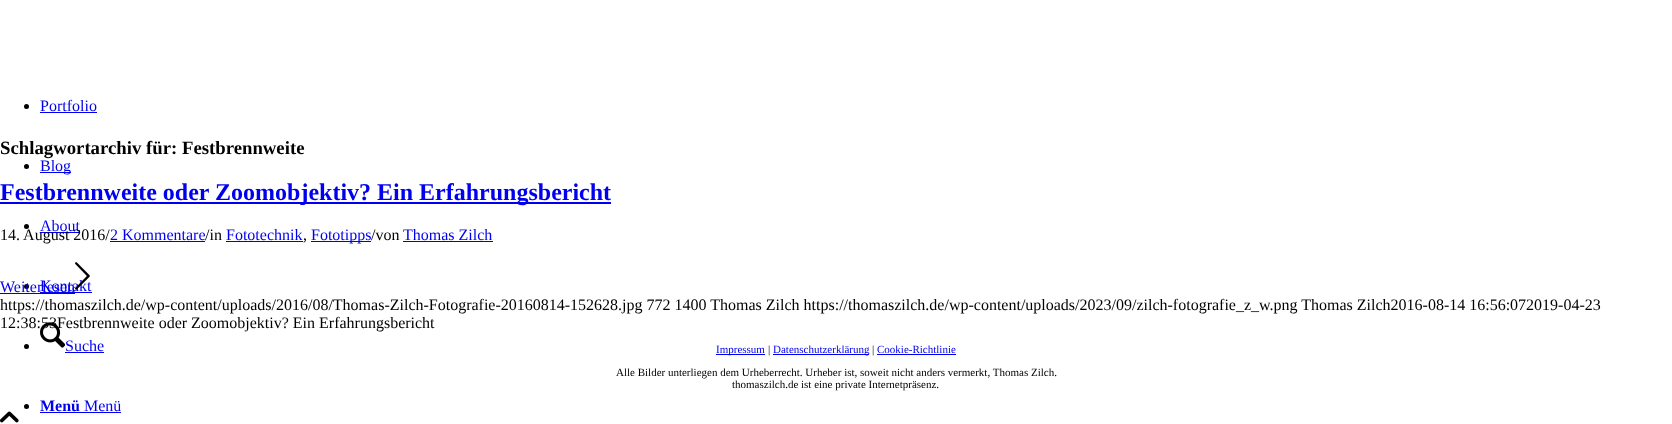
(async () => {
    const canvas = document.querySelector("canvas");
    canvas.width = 1672;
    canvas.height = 424;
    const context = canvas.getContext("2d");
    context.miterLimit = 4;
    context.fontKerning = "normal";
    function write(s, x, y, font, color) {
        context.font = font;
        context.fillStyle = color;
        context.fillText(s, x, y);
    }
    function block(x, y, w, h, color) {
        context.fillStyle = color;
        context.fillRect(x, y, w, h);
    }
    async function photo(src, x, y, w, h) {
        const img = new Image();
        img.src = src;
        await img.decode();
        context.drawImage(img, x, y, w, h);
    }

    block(0, 0, 1672, 424, "rgb(255, 255, 255)");
    context.fillStyle = "rgb(0, 0, 0)";
    context.beginPath();
    context.arc(26.5, 106.5, 2.5, 0, Math.PI * 2);
    context.fill();
    write("Portfolio", 40, 111, "16px Liberation Serif", "rgb(0, 0, 238)");
    block(40, 112, 57, 1, "rgb(0, 0, 238)");
    context.fillStyle = "rgb(0, 0, 0)";
    context.beginPath();
    context.arc(26.5, 166.5, 2.5, 0, Math.PI * 2);
    context.fill();
    block(40, 172, 31, 1, "rgb(0, 0, 238)");
    write("Blog", 40, 171, "16px Liberation Serif", "rgb(0, 0, 238)");
    context.fillStyle = "rgb(0, 0, 0)";
    context.beginPath();
    context.arc(26.5, 226.5, 2.5, 0, Math.PI * 2);
    context.fill();
    write("About", 40, 231, "16px Liberation Serif", "rgb(0, 0, 238)");
    block(40, 232, 40, 1, "rgb(0, 0, 238)");
    context.fillStyle = "rgb(0, 0, 0)";
    context.beginPath();
    context.arc(26.5, 286.5, 2.5, 0, Math.PI * 2);
    context.fill();
    write("Kontakt", 40, 291, "16px Liberation Serif", "rgb(0, 0, 238)");
    block(40, 292, 52, 1, "rgb(0, 0, 238)");
    context.fillStyle = "rgb(0, 0, 0)";
    context.beginPath();
    context.arc(26.5, 346.5, 2.5, 0, Math.PI * 2);
    context.fill();
    write("12:38:53Festbrennweite oder Zoomobjektiv? Ein Erfahrungsbericht", 0, 328, "16px Liberation Serif", "rgb(0, 0, 0)");
    await photo("media/1.png", 40, 322, 25, 26);
    write("Suche", 65, 351, "16px Liberation Serif", "rgb(0, 0, 238)");
    block(65, 352, 39, 1, "rgb(0, 0, 238)");
    context.fillStyle = "rgb(0, 0, 0)";
    context.beginPath();
    context.arc(26.5, 406.5, 2.5, 0, Math.PI * 2);
    context.fill();
    write("Menü", 40, 411, "bold 16px Liberation Serif", "rgb(0, 0, 238)");
    block(40, 412, 81, 1, "rgb(0, 0, 238)");
    write("Menü", 84, 411, "16px Liberation Serif", "rgb(0, 0, 238)");
    write("Schlagwortarchiv für: Festbrennweite", 0, 154, "bold 18.75px Liberation Serif", "rgb(0, 0, 0)");
    block(0, 202, 611, 2, "rgb(0, 0, 238)");
    write("Festbrennweite oder Zoomobjektiv? Ein Erfahrungsbericht", 0, 200, "bold 24px Liberation Serif", "rgb(0, 0, 238)");
    write("14. August 2016/", 0, 240, "16px Liberation Serif", "rgb(0, 0, 0)");
    block(110, 241, 95, 1, "rgb(0, 0, 238)");
    write("2 Kommentare", 110, 240, "16px Liberation Serif", "rgb(0, 0, 238)");
    write("/in", 205, 240, "16px Liberation Serif", "rgb(0, 0, 0)");
    write("Fototechnik", 226, 240, "16px Liberation Serif", "rgb(0, 0, 238)");
    write(",", 303, 240, "16px Liberation Serif", "rgb(0, 0, 0)");
    block(226, 241, 77, 1, "rgb(0, 0, 238)");
    block(311, 241, 60, 1, "rgb(0, 0, 238)");
    write("Fototipps", 311, 240, "16px Liberation Serif", "rgb(0, 0, 238)");
    write("/von", 371, 240, "16px Liberation Serif", "rgb(0, 0, 0)");
    write("Thomas Zilch", 403, 240, "16px Liberation Serif", "rgb(0, 0, 238)");
    block(403, 241, 90, 1, "rgb(0, 0, 238)");
    write("Weiterlesen", 0, 292, "16px Liberation Serif", "rgb(0, 0, 238)");
    block(0, 293, 75, 1, "rgb(0, 0, 238)");
    await photo("media/2.png", 75, 262, 15, 28);
    write("https://thomaszilch.de/wp-content/uploads/2016/08/Thomas-Zilch-Fotografie-20160814-152628.jpg 772 1400 Thomas Zilch https://thomaszilch.de/wp-content/uploads/2023/09/zilch-fotografie_z_w.png Thomas Zilch2016-08-14 16:56:072019-04-23", 0, 310, "16px Liberation Serif", "rgb(0, 0, 0)");
    block(716, 354, 49, 1, "rgb(0, 0, 238)");
    write("Impressum", 716, 353, "11px Liberation Serif", "rgb(0, 0, 238)");
    write("|", 768, 353, "11px Liberation Serif", "rgb(0, 0, 0)");
    block(773, 354, 96, 1, "rgb(0, 0, 238)");
    write("Datenschutzerklärung", 773, 353, "11px Liberation Serif", "rgb(0, 0, 238)");
    write("|", 872, 353, "11px Liberation Serif", "rgb(0, 0, 0)");
    write("Cookie-Richtlinie", 877, 353, "11px Liberation Serif", "rgb(0, 0, 238)");
    block(877, 354, 79, 1, "rgb(0, 0, 238)");
    write("Alle Bilder unterliegen dem Urheberrecht. Urheber ist, soweit nicht anders vermerkt, Thomas Zilch.", 616, 376, "11px Liberation Serif", "rgb(0, 0, 0)");
    write("thomaszilch.de ist eine private Internetpräsenz.", 732, 388, "11px Liberation Serif", "rgb(0, 0, 0)");
    await photo("media/3.png", 0, 411, 19, 12);
})();
